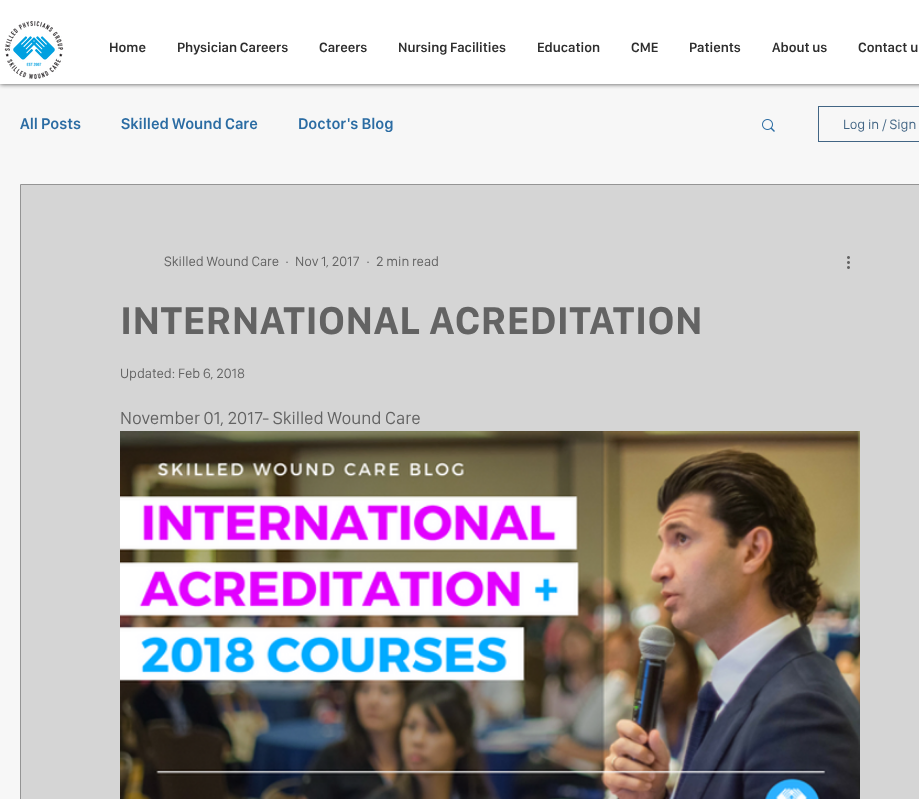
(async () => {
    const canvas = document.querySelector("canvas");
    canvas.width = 919;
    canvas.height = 799;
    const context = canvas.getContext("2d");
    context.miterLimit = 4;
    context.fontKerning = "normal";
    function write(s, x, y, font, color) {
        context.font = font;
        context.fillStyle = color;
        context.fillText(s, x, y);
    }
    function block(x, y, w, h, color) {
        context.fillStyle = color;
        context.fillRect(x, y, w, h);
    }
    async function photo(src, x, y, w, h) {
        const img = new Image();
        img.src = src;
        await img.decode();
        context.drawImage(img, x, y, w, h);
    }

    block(0, 0, 919, 799, "rgb(247, 247, 247)");
    context.fillStyle = "rgba(0, 0, 0, 0.7)";
    context.filter = "blur(2.5px)";
    context.beginPath();
    context.rect(0, 0, 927, 84);
    context.fill();
    context.filter = "none";
    block(0, 0, 919, 84, "rgb(255, 255, 255)");
    await photo("media/1.png", 4, 21, 60, 58);
    write("Home", 109, 52, "600 14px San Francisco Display", "rgb(46, 46, 46)");
    write("Physician Careers", 177, 52, "600 14px San Francisco Display", "rgb(46, 46, 46)");
    write("Careers", 319, 52, "600 14px San Francisco Display", "rgb(46, 46, 46)");
    write("Nursing Facilities", 398, 52, "600 14px San Francisco Display", "rgb(46, 46, 46)");
    write("Education", 537, 52, "600 14px San Francisco Display", "rgb(46, 46, 46)");
    write("CME", 631, 52, "600 14px San Francisco Display", "rgb(46, 46, 46)");
    write("Patients", 689, 52, "600 14px San Francisco Display", "rgb(46, 46, 46)");
    write("About us", 772, 52, "600 14px San Francisco Display", "rgb(46, 46, 46)");
    write("Contact u", 858, 52, "600 14px San Francisco Display", "rgb(46, 46, 46)");
    write("All Posts", 20, 129, "600 16px San Francisco Display", "rgb(43, 108, 163)");
    write("Skilled Wound Care", 121, 129, "600 16px San Francisco Display", "rgb(43, 108, 163)");
    write("Doctor's Blog", 298, 129, "600 16px San Francisco Display", "rgb(43, 108, 163)");
    await photo("media/2.png", 762, 119, 13, 13);
    context.strokeStyle = "rgb(66, 101, 132)";
    context.strokeRect(818.5, 106.5, 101, 35);
    write("Log in / Sign", 843, 129, "14px San Francisco Display", "rgb(66, 101, 132)");
    context.fillStyle = "rgb(213, 213, 213)";
    context.beginPath();
    context.rect(20.5, 184.5, 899, 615);
    context.fill();
    context.strokeStyle = "rgb(148, 148, 148)";
    context.stroke();
    write("Skilled Wound Care", 164, 266, "14px San Francisco Display", "rgb(99, 99, 99)");
    write("·", 285, 266, "14px San Francisco Display", "rgb(99, 99, 99)");
    write("Nov 1, 2017", 295, 266, "14px San Francisco Display", "rgb(99, 99, 99)");
    write("·", 366, 266, "14px San Francisco Display", "rgb(99, 99, 99)");
    write("2 min read", 376, 266, "14px San Francisco Display", "rgb(99, 99, 99)");
    await photo("media/3.png", 847, 256, 3, 13);
    write("INTERNATIONAL ACREDITATION", 120, 334, "bold 40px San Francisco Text", "rgb(99, 99, 99)");
    write("Updated: Feb 6, 2018", 120, 378, "14px San Francisco Display", "rgb(99, 99, 99)");
    write("November 01, 2017- Skilled Wound Care", 120, 424, "18px San Francisco Display", "rgb(99, 99, 99)");
    await photo("media/4.png", 120, 431, 740, 368);
})();
